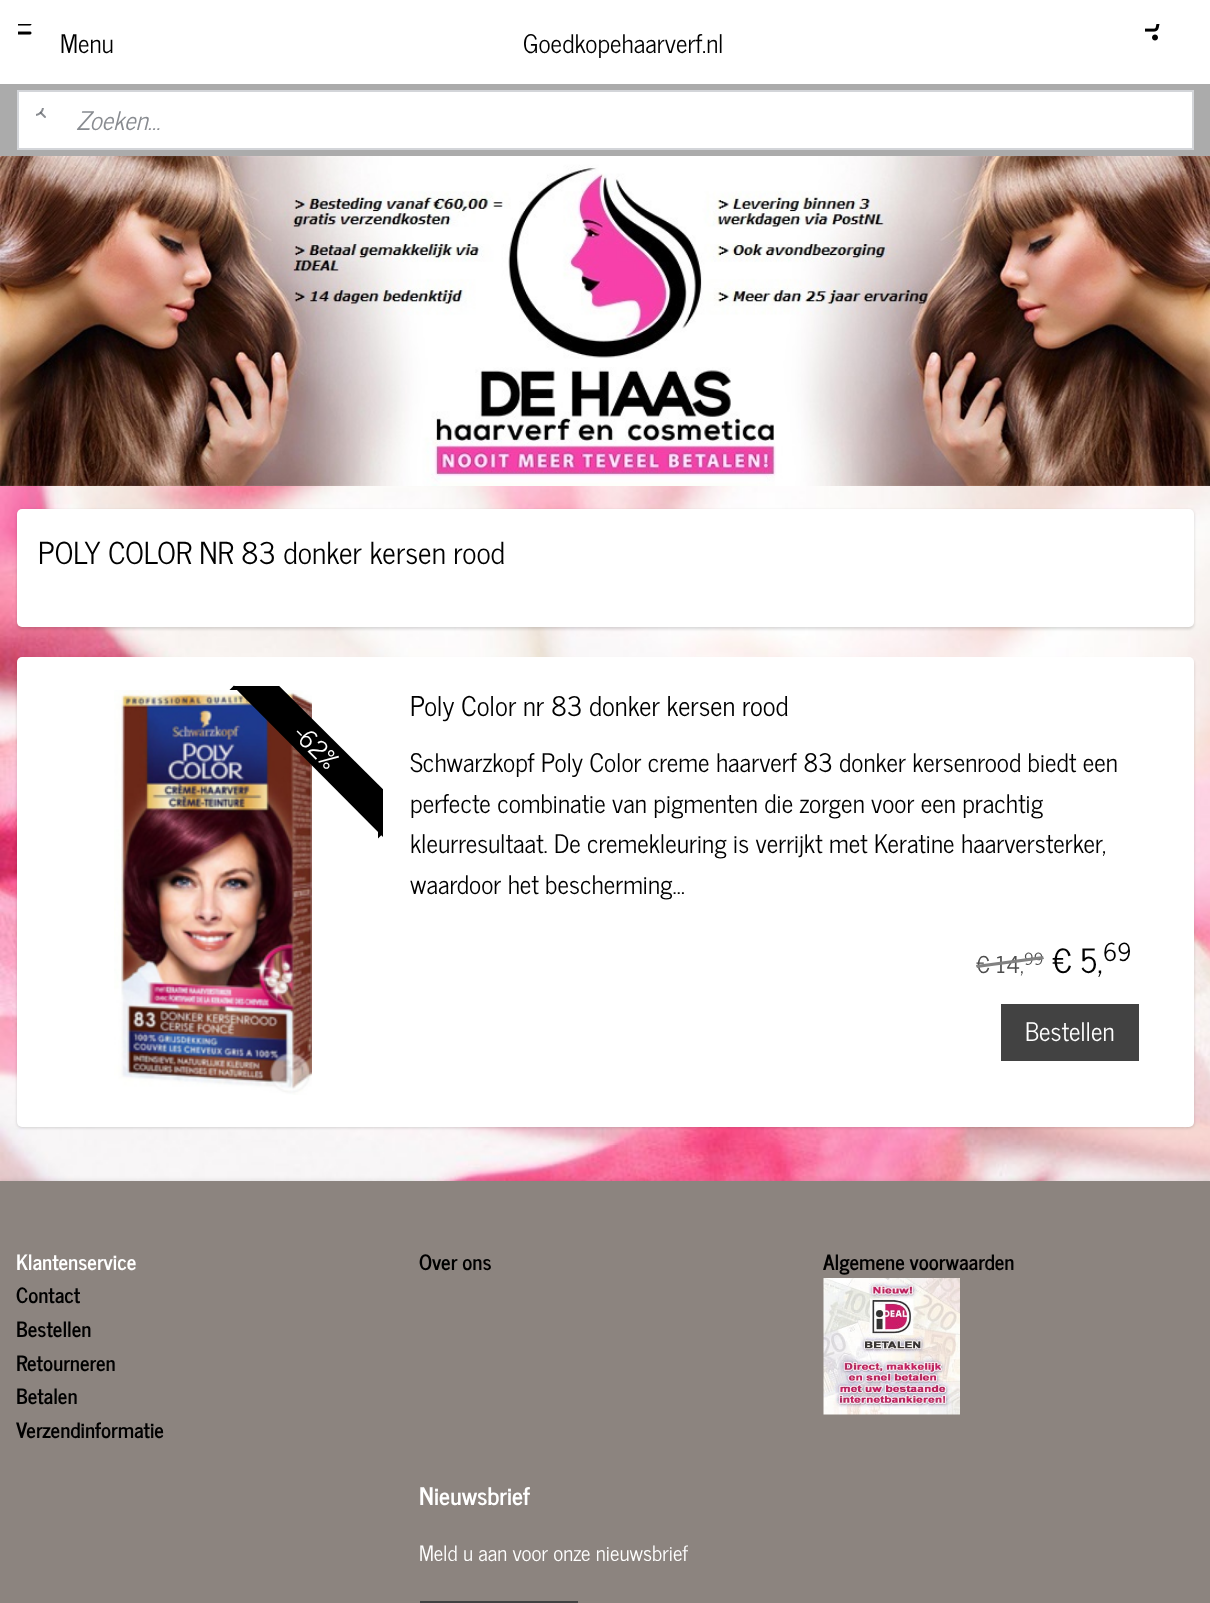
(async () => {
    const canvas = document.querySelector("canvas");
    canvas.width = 1210;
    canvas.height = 1603;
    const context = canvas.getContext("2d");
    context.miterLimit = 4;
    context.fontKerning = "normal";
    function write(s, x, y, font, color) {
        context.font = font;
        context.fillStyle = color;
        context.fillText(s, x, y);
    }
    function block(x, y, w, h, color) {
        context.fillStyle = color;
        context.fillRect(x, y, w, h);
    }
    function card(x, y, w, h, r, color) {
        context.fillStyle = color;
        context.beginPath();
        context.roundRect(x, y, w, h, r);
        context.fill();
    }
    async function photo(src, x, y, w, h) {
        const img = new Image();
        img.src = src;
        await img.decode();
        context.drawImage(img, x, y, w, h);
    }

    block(0, 0, 1210, 1603, "rgb(255, 255, 255)");
    await photo("media/1.png", 18, 24, 14, 11);
    write("Menu", 60, 53, "25.5px News Cycle", "rgb(0, 0, 0)");
    write("Goedkopehaarverf.nl", 523, 53, "25.5px News Cycle", "rgb(0, 0, 0)");
    await photo("media/2.png", 1145, 24, 15, 17);
    block(0, 84, 1210, 72, "rgb(171, 171, 171)");
    context.fillStyle = "rgb(255, 255, 255)";
    context.beginPath();
    context.rect(18, 91, 1175, 58);
    context.fill();
    context.strokeStyle = "rgb(211, 213, 217)";
    context.lineWidth = 2;
    context.stroke();
    await photo("media/3.png", 36, 108, 10, 10);
    write("Zoeken...", 76, 130, "italic 25.5px News Cycle", "rgb(137, 140, 145)");
    await photo("media/4.png", 0, 156, 1210, 330);
    await photo("media/5.png", 0, 486, 1210, 695);
    context.fillStyle = "rgba(0, 0, 0, 0.15)";
    context.filter = "blur(1.5px)";
    context.beginPath();
    context.roundRect(17, 510, 1177, 119, 5);
    context.fill();
    context.filter = "none";
    card(17, 509, 1177, 118, 5, "rgb(255, 255, 255)");
    write("POLY COLOR NR 83 donker kersen rood", 38, 564, "30px News Cycle", "rgb(0, 0, 0)");
    context.fillStyle = "rgba(0, 0, 0, 0.15)";
    context.filter = "blur(1.5px)";
    context.beginPath();
    context.roundRect(17, 659, 1177, 469, 5);
    context.fill();
    context.filter = "none";
    card(17, 657, 1177, 470, 5, "rgb(255, 255, 255)");
    await photo("media/6.png", 114, 690, 198, 405);
    context.fillStyle = "rgb(0, 0, 0)";
    context.beginPath();
    context.moveTo(238.5, 690);
    context.lineTo(229.5, 690);
    context.lineTo(234, 685.5);
    context.closePath();
    context.fill();
    context.beginPath();
    context.moveTo(378, 838.5);
    context.lineTo(378, 829.5);
    context.lineTo(382.5, 834);
    context.closePath();
    context.fill();
    context.save();
    context.beginPath();
    context.rect(203, 686, 180, 180);
    context.clip();
    context.beginPath();
    context.moveTo(250, 657);
    context.lineTo(408, 814);
    context.lineTo(384, 838);
    context.lineTo(225, 678);
    context.lineTo(246, 657);
    context.closePath();
    context.fill();
    context.restore();
    context.font = "25.5px News Cycle";
    context.fillStyle = "rgb(255, 255, 255)";
    context.save();
    context.translate(292, 736);
    context.rotate(45 * Math.PI / 180);
    context.fillText("-62%", 0, 0);
    context.restore();
    write("Poly Color nr 83 donker kersen rood", 410, 716, "27px News Cycle", "rgb(0, 0, 0)");
    write("Schwarzkopf Poly Color creme haarverf 83 donker kersenrood biedt een", 410, 772, "25.5px News Cycle", "rgb(0, 0, 0)");
    write("perfecte combinatie van pigmenten die zorgen voor een prachtig", 410, 813, "25.5px News Cycle", "rgb(0, 0, 0)");
    write("kleurresultaat. De cremekleuring is verrijkt met Keratine haarversterker,", 410, 853, "25.5px News Cycle", "rgb(0, 0, 0)");
    write("waardoor het bescherming…", 410, 894, "25.5px News Cycle", "rgb(0, 0, 0)");
    write("€ 14,", 976, 973, "23px News Cycle", "rgb(77, 77, 77)");
    write("99", 1024, 965, "17px News Cycle", "rgb(77, 77, 77)");
    context.fillStyle = "rgb(130, 130, 130)";
    context.beginPath();
    context.moveTo(976, 965);
    context.lineTo(1043, 956);
    context.lineTo(1044, 959);
    context.lineTo(977, 968);
    context.closePath();
    context.fill();
    write("€ 5,", 1052, 973, "33px News Cycle", "rgb(0, 0, 0)");
    write("69", 1103, 961, "25px News Cycle", "rgb(0, 0, 0)");
    block(1001, 1004, 138, 57, "rgb(66, 66, 66)");
    write("Bestellen", 1025, 1041, "25.5px News Cycle", "rgb(255, 255, 255)");
    context.fillStyle = "rgba(0, 0, 0, 0.05)";
    context.filter = "blur(1.5px)";
    context.beginPath();
    context.rect(0, 1179, 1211, 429);
    context.fill();
    context.filter = "none";
    block(0, 1181, 1210, 422, "rgb(140, 132, 127)");
    write("Klantenservice", 16, 1270, "bold 21px News Cycle", "rgb(255, 255, 255)");
    write("Contact", 16, 1303, "bold 21px News Cycle", "rgb(0, 0, 0)");
    write("Bestellen", 16, 1337, "bold 21px News Cycle", "rgb(0, 0, 0)");
    write("Retourneren", 16, 1371, "bold 21px News Cycle", "rgb(0, 0, 0)");
    write("Betalen", 16, 1404, "bold 21px News Cycle", "rgb(0, 0, 0)");
    write("Verzendinformatie", 16, 1438, "bold 21px News Cycle", "rgb(0, 0, 0)");
    write("Over ons", 419, 1270, "bold 21px News Cycle", "rgb(0, 0, 0)");
    write("Algemene voorwaarden", 823, 1270, "bold 21px News Cycle", "rgb(0, 0, 0)");
    await photo("media/7.png", 823, 1278, 137, 137);
    write("Nieuwsbrief", 419, 1505, "bold 24px News Cycle", "rgb(255, 255, 255)");
    write("Meld u aan voor onze nieuwsbrief", 419, 1561, "21px News Cycle", "rgb(255, 255, 255)");
    block(420, 1601, 158, 2, "rgb(66, 66, 66)");
})();
